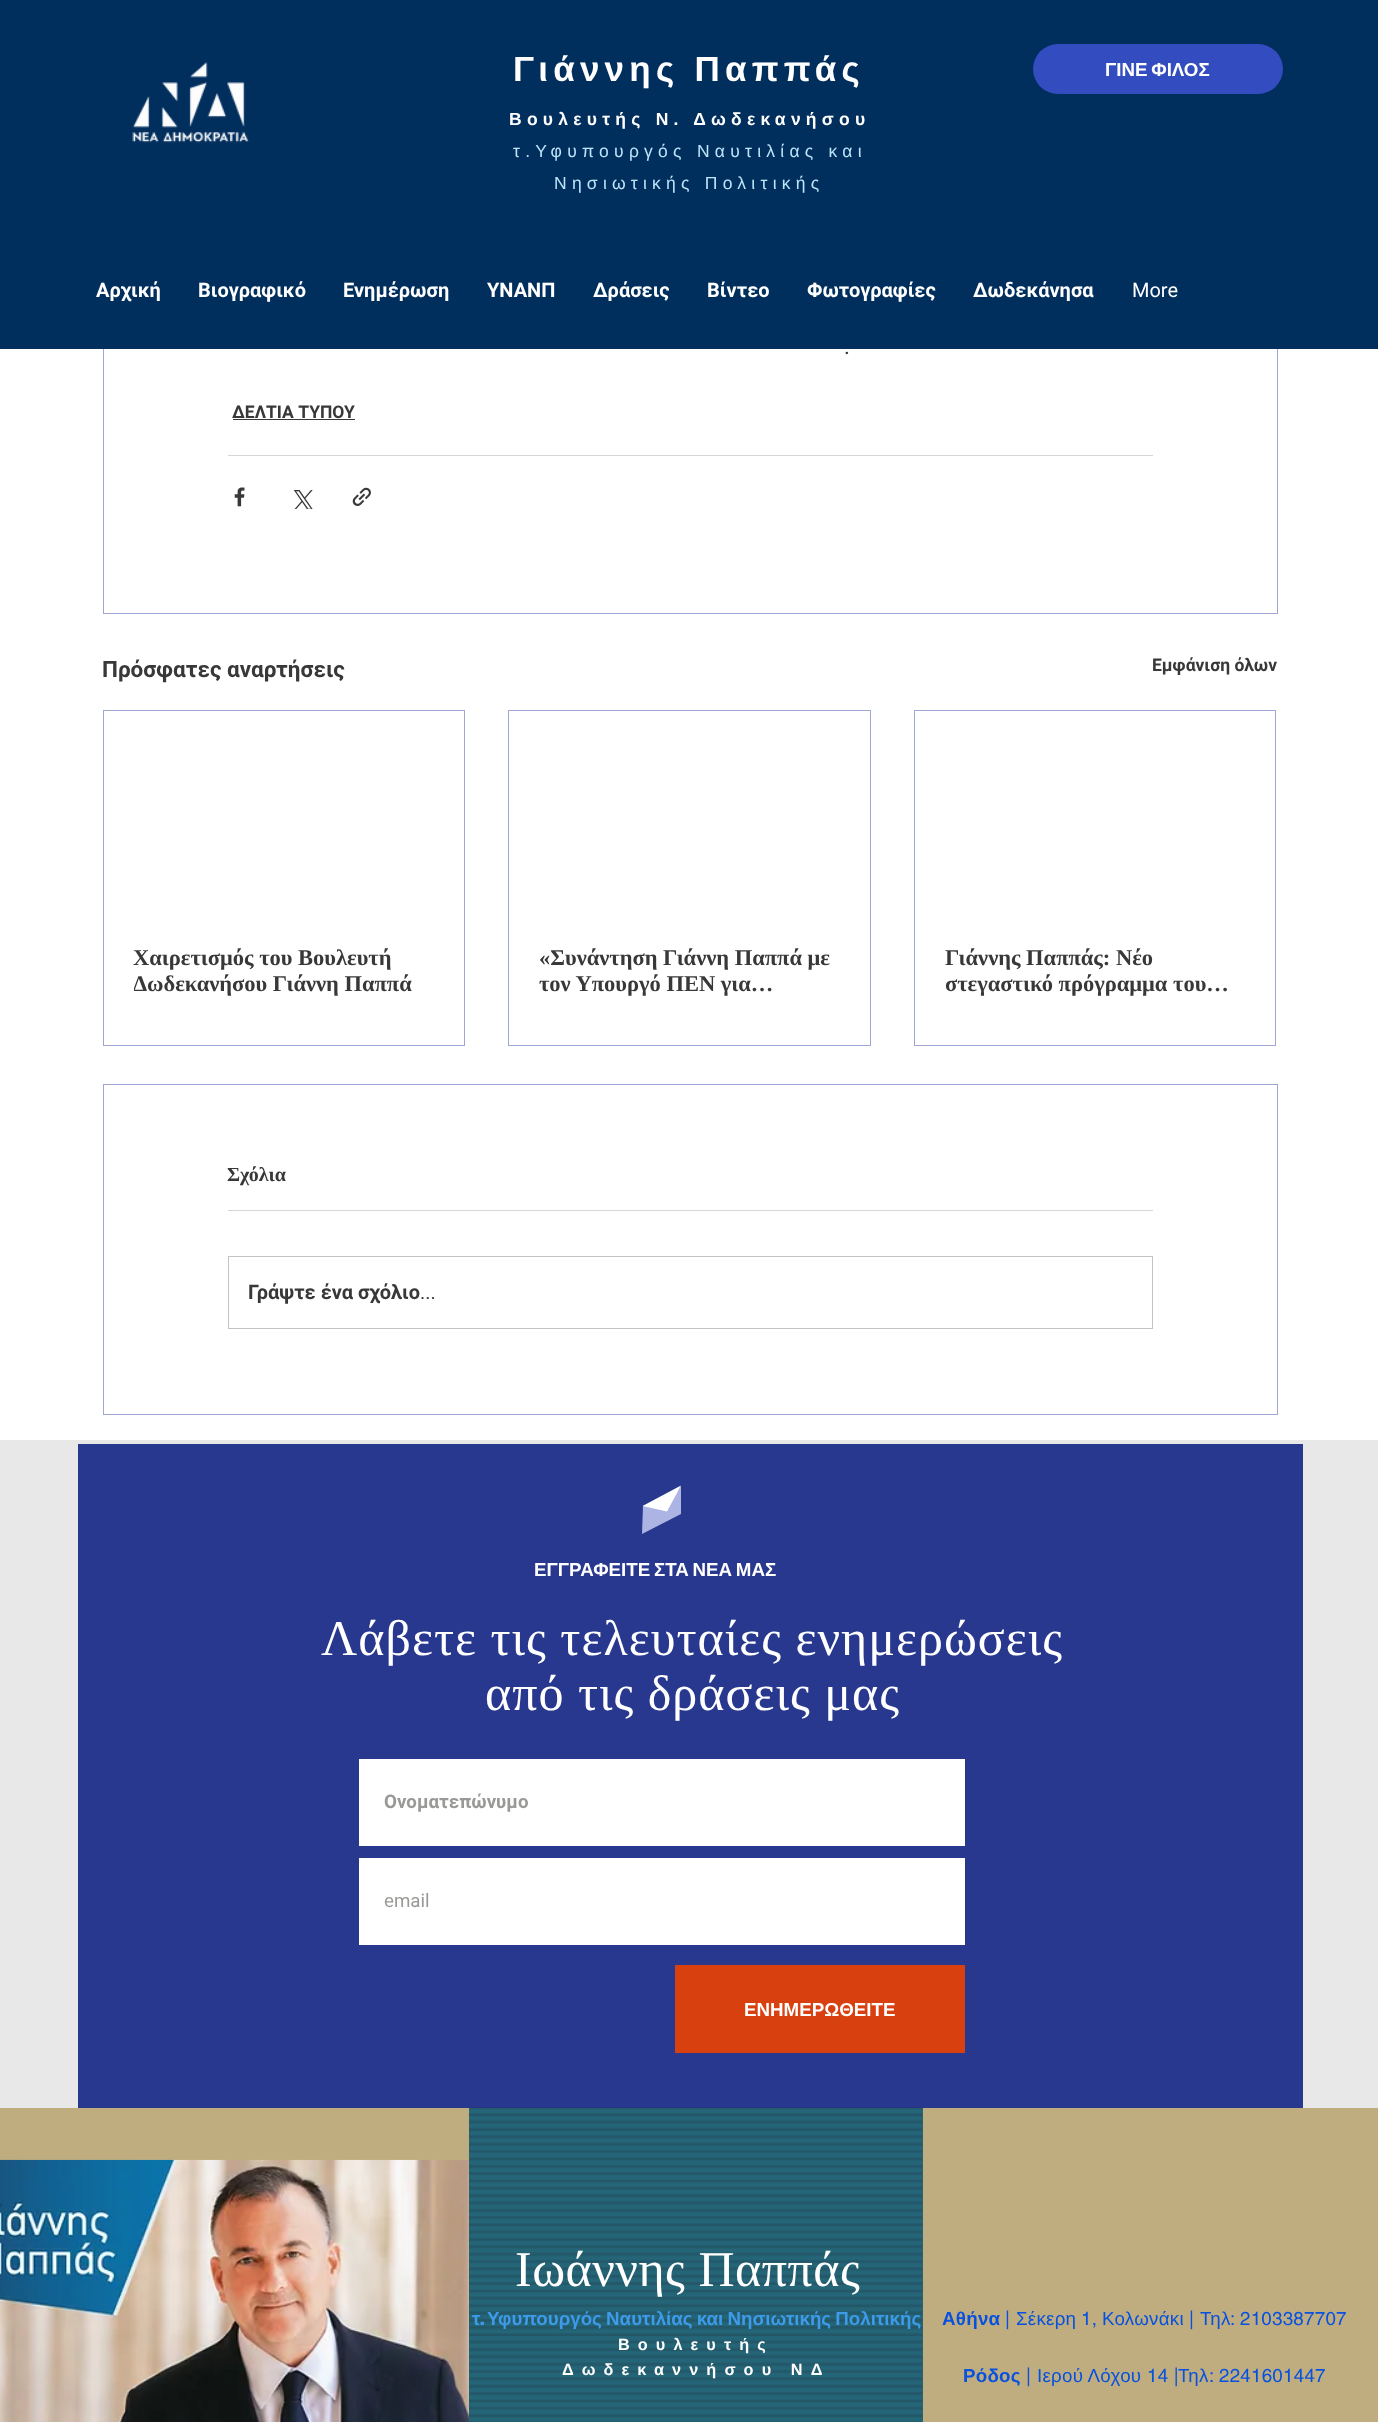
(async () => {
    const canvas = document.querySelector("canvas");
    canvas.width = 1378;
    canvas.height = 2422;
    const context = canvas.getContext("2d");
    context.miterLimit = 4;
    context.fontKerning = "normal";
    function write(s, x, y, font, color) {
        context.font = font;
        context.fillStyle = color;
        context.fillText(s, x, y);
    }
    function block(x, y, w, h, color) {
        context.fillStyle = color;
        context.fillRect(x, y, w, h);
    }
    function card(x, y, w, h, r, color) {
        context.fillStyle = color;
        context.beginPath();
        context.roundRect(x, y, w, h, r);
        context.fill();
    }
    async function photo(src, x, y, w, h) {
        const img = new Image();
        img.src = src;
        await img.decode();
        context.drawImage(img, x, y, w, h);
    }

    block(0, 0, 1378, 2422, "rgb(255, 255, 255)");
    context.strokeStyle = "rgb(158, 167, 214)";
    context.strokeRect(103.5, -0.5, 1174, 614);
    block(0, 0, 1378, 349, "rgb(0, 46, 93)");
    await photo("media/1.png", 132, 62, 117, 81);
    context.letterSpacing = "5.25px";
    write("Γιάννης Παππάς", 513, 81, "bold 35px Liberation Sans", "rgb(255, 255, 255)");
    write("Βουλευτής Ν. Δωδεκανήσου", 509, 125, "bold 17.5px Liberation Sans", "rgb(255, 255, 255)");
    write("τ.Υφυπουργός Ναυτιλίας και", 513, 157, "17.5px Liberation Sans", "rgb(190, 228, 249)");
    write("Νησιωτικής Πολιτικής", 554, 189, "17.5px Liberation Sans", "rgb(190, 228, 249)");
    card(1033, 44, 250, 50, 25, "rgb(51, 76, 192)");
    context.letterSpacing = "0px";
    context.wordSpacing = "-1.5px";
    write("ΓΙΝΕ ΦΙΛΟΣ", 1105, 76, "bold 18.75px Liberation Sans", "rgb(255, 255, 255)");
    context.wordSpacing = "0px";
    write("Αρχική", 96, 297, "bold 20px Roboto", "rgb(255, 255, 255)");
    write("Βιογραφικό", 198, 297, "bold 20px Roboto", "rgb(255, 255, 255)");
    write("Ενημέρωση", 343, 297, "bold 20px Roboto", "rgb(255, 255, 255)");
    write("ΥΝΑΝΠ", 487, 297, "bold 20px Roboto", "rgb(255, 255, 255)");
    write("Δράσεις", 593, 297, "bold 20px Roboto", "rgb(255, 255, 255)");
    write("Βίντεο", 707, 297, "bold 20px Roboto", "rgb(255, 255, 255)");
    write("Φωτογραφίες", 807, 297, "bold 20px Roboto", "rgb(255, 255, 255)");
    write("Δωδεκάνησα", 973, 297, "bold 20px Roboto", "rgb(255, 255, 255)");
    write("More", 1132, 297, "20px Roboto", "rgb(255, 255, 255)");
    write(".", 844, 354, "22.5px Roboto", "rgb(56, 56, 56)");
    write("ΔΕΛΤΙΑ ΤΥΠΟΥ", 232, 418, "bold 17.5px Roboto", "rgb(56, 56, 56)");
    block(233, 419, 122, 1, "rgb(56, 56, 56)");
    block(228, 455, 925, 1, "rgb(215, 215, 215)");
    await photo("media/2.png", 234, 487, 11, 20);
    await photo("media/3.png", 293, 490, 20, 19);
    await photo("media/4.png", 352, 487, 19, 19);
    write("Πρόσφατες αναρτήσεις", 102, 677, "bold 22.5px Roboto", "rgb(56, 56, 56)");
    write("Εμφάνιση όλων", 1152, 671, "bold 17.5px Roboto", "rgb(56, 56, 56)");
    context.strokeRect(103.5, 710.5, 361, 335);
    write("Χαιρετισμός του Βουλευτή", 133, 965, "bold 22.5px Liberation Serif", "rgb(56, 56, 56)");
    context.save();
    context.beginPath();
    context.rect(134, 945, 300, 53);
    context.clip();
    write("Δωδεκανήσου Γιάννη Παππά", 133, 991, "bold 22.5px Liberation Serif", "rgb(56, 56, 56)");
    context.restore();
    context.strokeRect(508.5, 710.5, 362, 335);
    write("«Συνάντηση Γιάννη Παππά με", 539, 965, "bold 22.5px Liberation Serif", "rgb(56, 56, 56)");
    write("τον Υπουργό ΠΕΝ για…", 539, 991, "bold 22.5px Liberation Serif", "rgb(56, 56, 56)");
    context.strokeRect(914.5, 710.5, 361, 335);
    write("Γιάννης Παππάς: Νέο", 945, 965, "bold 22.5px Liberation Serif", "rgb(56, 56, 56)");
    write("στεγαστικό πρόγραμμα του…", 945, 991, "bold 22.5px Liberation Serif", "rgb(56, 56, 56)");
    context.strokeRect(103.5, 1084.5, 1174, 330);
    write("Σχόλια", 227, 1181, "bold 20px Liberation Serif", "rgb(56, 56, 56)");
    block(228, 1210, 925, 1, "rgb(215, 215, 215)");
    context.strokeStyle = "rgb(195, 195, 195)";
    context.strokeRect(228.5, 1256.5, 924, 72);
    write("Γράψτε ένα σχόλιο", 248, 1299, "bold 20px Roboto", "rgb(56, 56, 56)");
    write("...", 420, 1299, "20px Roboto", "rgb(56, 56, 56)");
    block(0, 1440, 1378, 668, "rgb(232, 232, 232)");
    block(78, 1444, 1225, 664, "rgb(40, 56, 142)");
    context.fillStyle = "rgb(172, 180, 228)";
    context.beginPath();
    context.moveTo(643, 1506);
    context.lineTo(642, 1534);
    context.lineTo(681, 1514);
    context.lineTo(681, 1486);
    context.lineTo(666, 1506);
    context.closePath();
    context.fill();
    context.fillStyle = "rgb(255, 255, 255)";
    context.beginPath();
    context.moveTo(667, 1511.5);
    context.lineTo(681, 1485.5);
    context.lineTo(642.5, 1506);
    context.closePath();
    context.fill();
    context.wordSpacing = "-1.5px";
    write("ΕΓΓΡΑΦΕΙΤΕ ΣΤΑ ΝΕΑ ΜΑΣ", 534, 1576, "bold 18.75px Liberation Sans", "rgb(255, 255, 255)");
    context.letterSpacing = "1px";
    context.wordSpacing = "0px";
    write("Λάβετε τις τελευταίες ενημερώσεις", 321, 1655, "50px Liberation Serif", "rgb(255, 255, 255)");
    write("από τις δράσεις μας", 485, 1710, "50px Liberation Serif", "rgb(255, 255, 255)");
    block(359, 1759, 606, 87, "rgb(255, 255, 255)");
    context.letterSpacing = "0px";
    write("Ονοματεπώνυμο", 384, 1808, "bold 18.75px Roboto", "rgb(153, 153, 151)");
    block(359, 1858, 606, 87, "rgb(255, 255, 255)");
    write("email", 384, 1907, "18.75px Roboto", "rgb(153, 153, 151)");
    block(675, 1965, 290, 88, "rgb(216, 64, 16)");
    write("ΕΝΗΜΕΡΩΘΕΙΤΕ", 744, 2016, "bold 18.75px Liberation Sans", "rgb(255, 255, 255)");
    block(0, 2108, 469, 52, "rgb(191, 173, 127)");
    block(923, 2108, 455, 314, "rgb(191, 173, 127)");
    await photo("media/5.png", 0, 2159, 469, 263);
    block(469, 2108, 454, 314, "rgb(37, 101, 120)");
    await photo("media/6.png", 469, 2107, 454, 315);
    context.letterSpacing = "0.5px";
    write("Ιωάννης Παππάς", 515, 2286, "50px Liberation Serif", "rgb(255, 255, 255)");
    context.letterSpacing = "0px";
    write("τ", 472, 2325, "bold 18.75px Liberation Sans", "rgb(61, 155, 233)");
    write(".", 480, 2325, "bold 18.75px Poppins", "rgb(61, 155, 233)");
    context.wordSpacing = "-1px";
    write("Υφυπουργός Ναυτιλίας και Νησιωτικής Πολιτικής", 487, 2325, "bold 18.75px Liberation Sans", "rgb(61, 155, 233)");
    context.letterSpacing = "8.1px";
    context.wordSpacing = "0px";
    write("Βουλευτής", 618, 2350, "bold 16.25px Liberation Sans", "rgb(255, 255, 255)");
    context.wordSpacing = "-1px";
    write("Δωδεκαννήσου ΝΔ", 562, 2375, "bold 16.25px Liberation Sans", "rgb(255, 255, 255)");
    context.letterSpacing = "0.25px";
    context.wordSpacing = "0px";
    write("Αθήνα", 942, 2325, "bold 18.75px Liberation Sans", "rgb(7, 81, 224)");
    write("|", 1005, 2325, "18.75px helvetica", "rgb(7, 81, 224)");
    write("Σέκερη", 1016, 2325, "18.75px Liberation Sans", "rgb(7, 81, 224)");
    write("1,", 1081, 2325, "18.75px helvetica", "rgb(7, 81, 224)");
    write("Κολωνάκι", 1102, 2325, "18.75px Liberation Sans", "rgb(7, 81, 224)");
    write("|", 1189, 2325, "18.75px helvetica", "rgb(7, 81, 224)");
    write("Τηλ", 1200, 2325, "18.75px Liberation Sans", "rgb(7, 81, 224)");
    write(": 2103387707", 1230, 2325, "18.75px helvetica", "rgb(7, 81, 224)");
    write("Ρόδος", 963, 2382, "bold 18.75px Liberation Sans", "rgb(7, 81, 224)");
    write("|", 1026, 2382, "18.75px helvetica", "rgb(7, 81, 224)");
    write("Ιερού Λόχου", 1037, 2382, "18.75px Liberation Sans", "rgb(7, 81, 224)");
    write("14 |", 1147, 2382, "18.75px helvetica", "rgb(7, 81, 224)");
    write("Τηλ", 1178, 2382, "18.75px Liberation Sans", "rgb(7, 81, 224)");
    write(": 2241601447", 1209, 2382, "18.75px helvetica", "rgb(7, 81, 224)");
})();
